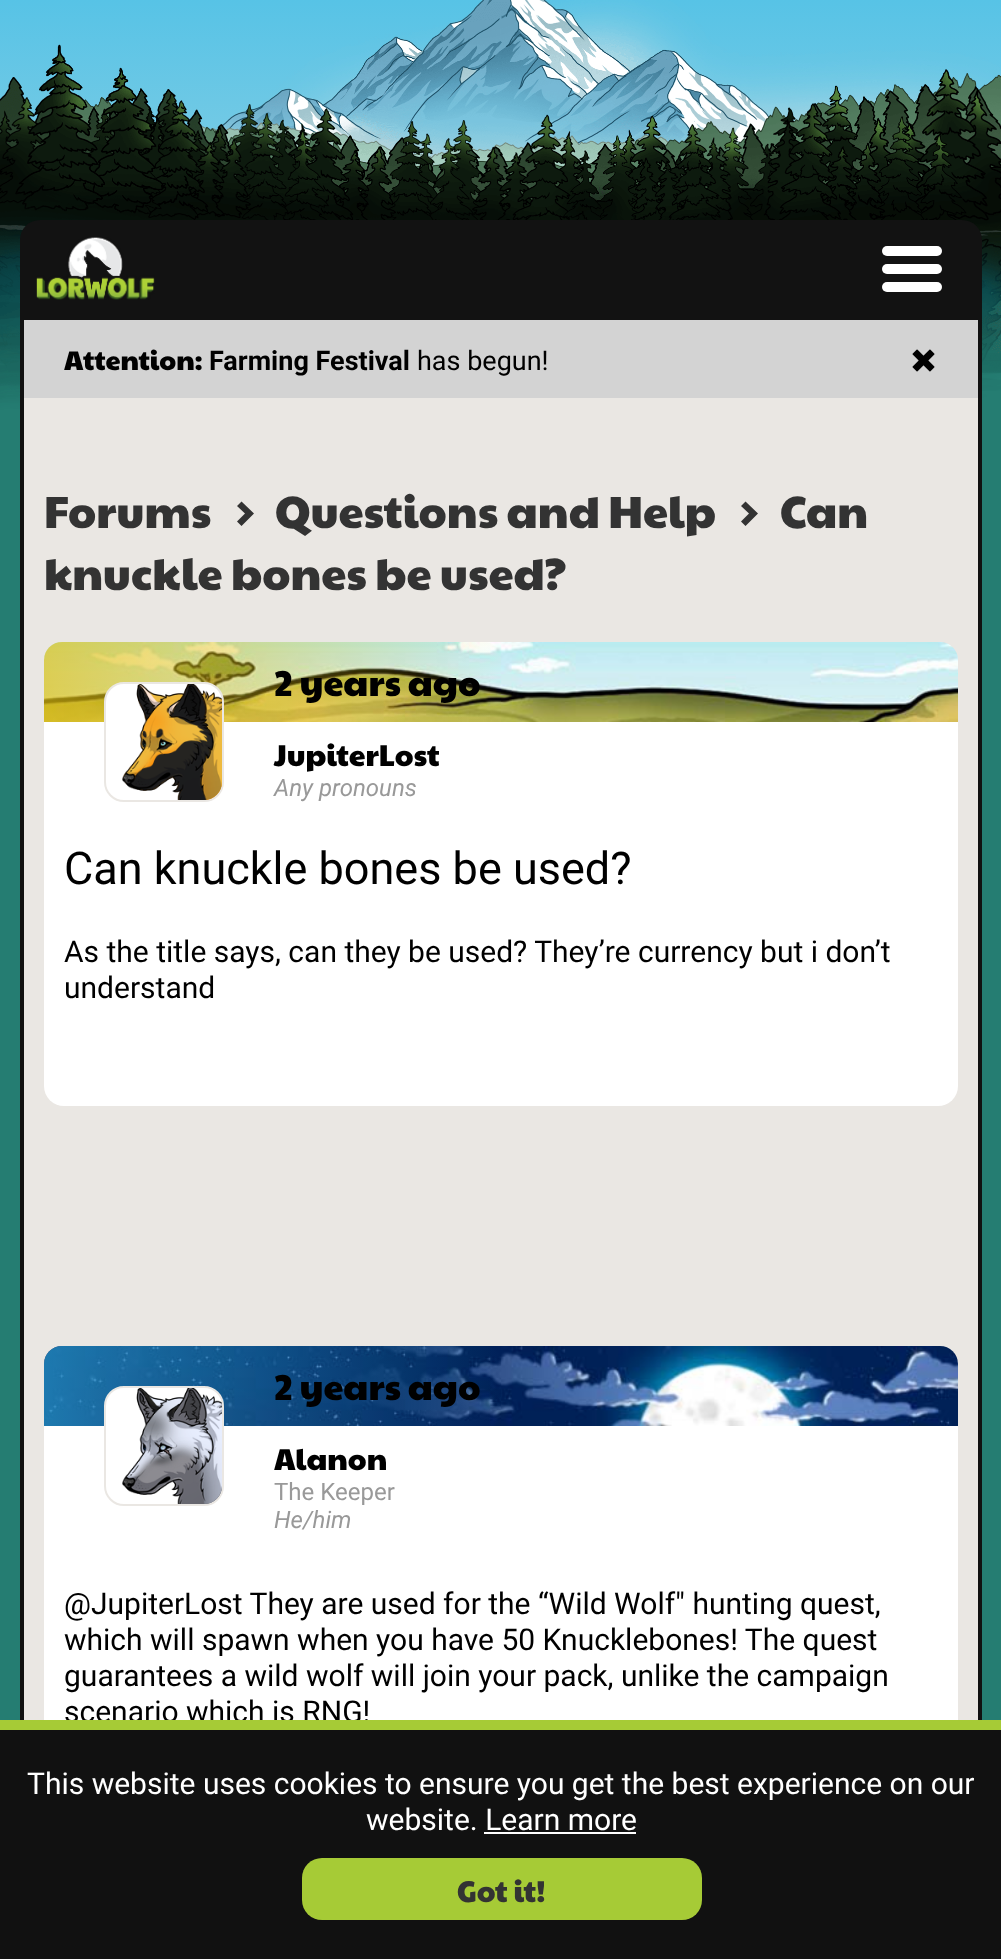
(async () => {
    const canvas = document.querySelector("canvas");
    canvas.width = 1001;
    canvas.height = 1959;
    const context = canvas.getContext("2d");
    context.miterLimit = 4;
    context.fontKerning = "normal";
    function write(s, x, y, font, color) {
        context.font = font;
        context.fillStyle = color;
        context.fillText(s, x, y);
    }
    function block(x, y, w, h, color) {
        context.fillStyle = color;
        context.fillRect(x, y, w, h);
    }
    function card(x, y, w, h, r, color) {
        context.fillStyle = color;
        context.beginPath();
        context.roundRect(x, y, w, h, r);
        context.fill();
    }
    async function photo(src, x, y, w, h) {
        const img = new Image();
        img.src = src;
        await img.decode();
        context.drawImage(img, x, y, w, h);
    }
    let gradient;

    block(0, 0, 1001, 1959, "rgb(37, 125, 114)");
    gradient = context.createLinearGradient(501, 0, 501, 490);
    gradient.addColorStop(0, "rgb(87, 195, 230)");
    gradient.addColorStop(1, "rgb(187, 219, 226)");
    context.fillStyle = gradient;
    context.fillRect(0, 0, 1001, 130);
    await photo("media/1.png", 0, 0, 1001, 490);
    context.fillStyle = "rgb(18, 18, 18)";
    context.beginPath();
    context.roundRect(20, 220, 962, 100, [20, 20, 0, 0]);
    context.fill();
    card(882, 246, 60, 10, 5, "rgb(255, 255, 255)");
    card(882, 264, 60, 10, 5, "rgb(255, 255, 255)");
    card(882, 282, 60, 10, 5, "rgb(255, 255, 255)");
    await photo("media/2.png", 36, 237, 119, 63);
    block(24, 398, 954, 1322, "rgb(234, 231, 227)");
    context.fillStyle = "rgb(17, 17, 17)";
    context.beginPath();
    context.moveTo(20, 320);
    context.lineTo(982, 320);
    context.lineTo(982, 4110);
    context.bezierCurveTo(982, 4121, 973, 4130, 962, 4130);
    context.lineTo(40, 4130);
    context.bezierCurveTo(29, 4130, 20, 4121, 20, 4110);
    context.closePath();
    context.moveTo(24, 320);
    context.lineTo(978, 320);
    context.lineTo(978, 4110);
    context.bezierCurveTo(978, 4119, 971, 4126, 962, 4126);
    context.lineTo(40, 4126);
    context.bezierCurveTo(31, 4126, 24, 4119, 24, 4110);
    context.closePath();
    context.fill("evenodd");
    block(24, 320, 954, 78, "rgb(211, 211, 211)");
    write("Attention:", 64, 370, "27px Paytone One", "rgb(0, 0, 0)");
    write("Farming Festival", 209, 370, "bold 27px Roboto", "rgb(0, 0, 0)");
    write("has begun!", 417, 370, "27px Roboto", "rgb(0, 0, 0)");
    await photo("media/3.png", 912, 349, 23, 23);
    write("Forums", 44, 528, "45px Paytone One", "rgb(51, 51, 51)");
    context.beginPath();
    context.moveTo(254, 513.5);
    context.lineTo(241.5, 526);
    context.lineTo(237, 521.5);
    context.lineTo(245, 513.5);
    context.lineTo(237, 506);
    context.lineTo(241.5, 501.5);
    context.closePath();
    context.fill();
    write("Questions and Help", 275, 528, "45px Paytone One", "rgb(51, 51, 51)");
    context.beginPath();
    context.moveTo(758, 513.5);
    context.lineTo(745.5, 526);
    context.lineTo(741, 521.5);
    context.lineTo(749, 513.5);
    context.lineTo(741, 506);
    context.lineTo(745.5, 501.5);
    context.closePath();
    context.fill();
    write("Can", 780, 528, "45px Paytone One", "rgb(51, 51, 51)");
    write("knuckle bones be used?", 44, 590, "45px Paytone One", "rgb(51, 51, 51)");
    card(44, 642, 914, 464, 20, "rgb(255, 255, 255)");
    await photo("media/4.png", 44, 642, 914, 80);
    gradient = context.createLinearGradient(44, 682, 502, 682);
    gradient.addColorStop(0, "rgba(225, 192, 15, 0.7)");
    gradient.addColorStop(1, "rgba(225, 192, 15, 0)");
    context.fillStyle = gradient;
    context.beginPath();
    context.roundRect(44, 642, 458, 80, [18, 18, 0, 0]);
    context.fill();
    write("2 years ago", 274, 696, "36px Paytone One", "rgb(0, 0, 0)");
    context.fillStyle = "rgb(255, 255, 255)";
    context.beginPath();
    context.roundRect(105, 683, 118, 118, 19);
    context.fill();
    context.strokeStyle = "rgb(234, 231, 227)";
    context.lineWidth = 2;
    context.stroke();
    await photo("media/5.png", 122, 684, 100, 116);
    await photo("media/7.png", 123, 684, 99, 116);
    await photo("media/8.png", 131, 684, 83, 116);
    await photo("media/9.png", 139, 684, 41, 32);
    await photo("media/10.png", 143, 740, 24, 7);
    await photo("media/6.png", 122, 684, 100, 116);
    write("JupiterLost", 274, 766, "30px Paytone One", "rgb(0, 0, 0)");
    write("Any pronouns", 274, 796, "italic 24px Roboto", "rgb(153, 153, 153)");
    write("Can knuckle bones be used?", 64, 884, "45px Roboto", "rgb(0, 0, 0)");
    write("As the title says, can they be used? They’re currency but i don’t", 64, 962, "30px Roboto", "rgb(0, 0, 0)");
    write("understand", 64, 998, "30px Roboto", "rgb(0, 0, 0)");
    card(44, 1346, 914, 484, 20, "rgb(255, 255, 255)");
    await photo("media/11.png", 44, 1346, 914, 80);
    gradient = context.createLinearGradient(44, 1386, 502, 1386);
    gradient.addColorStop(0, "rgba(37, 170, 225, 0.7)");
    gradient.addColorStop(1, "rgba(37, 170, 225, 0)");
    context.fillStyle = gradient;
    context.beginPath();
    context.roundRect(44, 1346, 458, 80, [18, 18, 0, 0]);
    context.fill();
    write("2 years ago", 274, 1400, "36px Paytone One", "rgb(0, 0, 0)");
    context.fillStyle = "rgb(255, 255, 255)";
    context.beginPath();
    context.roundRect(105, 1387, 118, 118, 19);
    context.fill();
    context.stroke();
    await photo("media/12.png", 122, 1388, 100, 116);
    await photo("media/14.png", 123, 1388, 99, 116);
    await photo("media/15.png", 124, 1388, 86, 116);
    await photo("media/16.png", 138, 1388, 42, 31);
    await photo("media/18.png", 143, 1444, 24, 7);
    await photo("media/13.png", 122, 1388, 100, 116);
    await photo("media/17.png", 154, 1441, 19, 20);
    write("Alanon", 274, 1470, "30px Paytone One", "rgb(0, 0, 0)");
    write("The Keeper", 274, 1500, "24px Roboto", "rgb(153, 153, 153)");
    write("He/him", 274, 1528, "italic 24px Roboto", "rgb(153, 153, 153)");
    write("@JupiterLost They are used for the “Wild Wolf\" hunting quest,", 64, 1614, "30px Roboto", "rgb(0, 0, 0)");
    write("which will spawn when you have 50 Knucklebones! The quest", 64, 1650, "30px Roboto", "rgb(0, 0, 0)");
    write("guarantees a wild wolf will join your pack, unlike the campaign", 64, 1686, "30px Roboto", "rgb(0, 0, 0)");
    write("scenario which is RNG!", 64, 1722, "30px Roboto", "rgb(0, 0, 0)");
    block(0, 1730, 1001, 229, "rgb(17, 17, 17)");
    block(0, 1720, 1001, 10, "rgb(166, 203, 54)");
    write("This website uses cookies to ensure you get the best experience on our", 27, 1794, "30px Roboto", "rgb(255, 255, 255)");
    write("website. Learn more", 366, 1830, "30px Roboto", "rgb(255, 255, 255)");
    block(484, 1832, 152, 2, "rgb(255, 255, 255)");
    card(302, 1858, 400, 62, 20, "rgb(166, 203, 54)");
    write("Got it!", 457, 1902, "30px Paytone One", "rgb(51, 51, 51)");
})();
